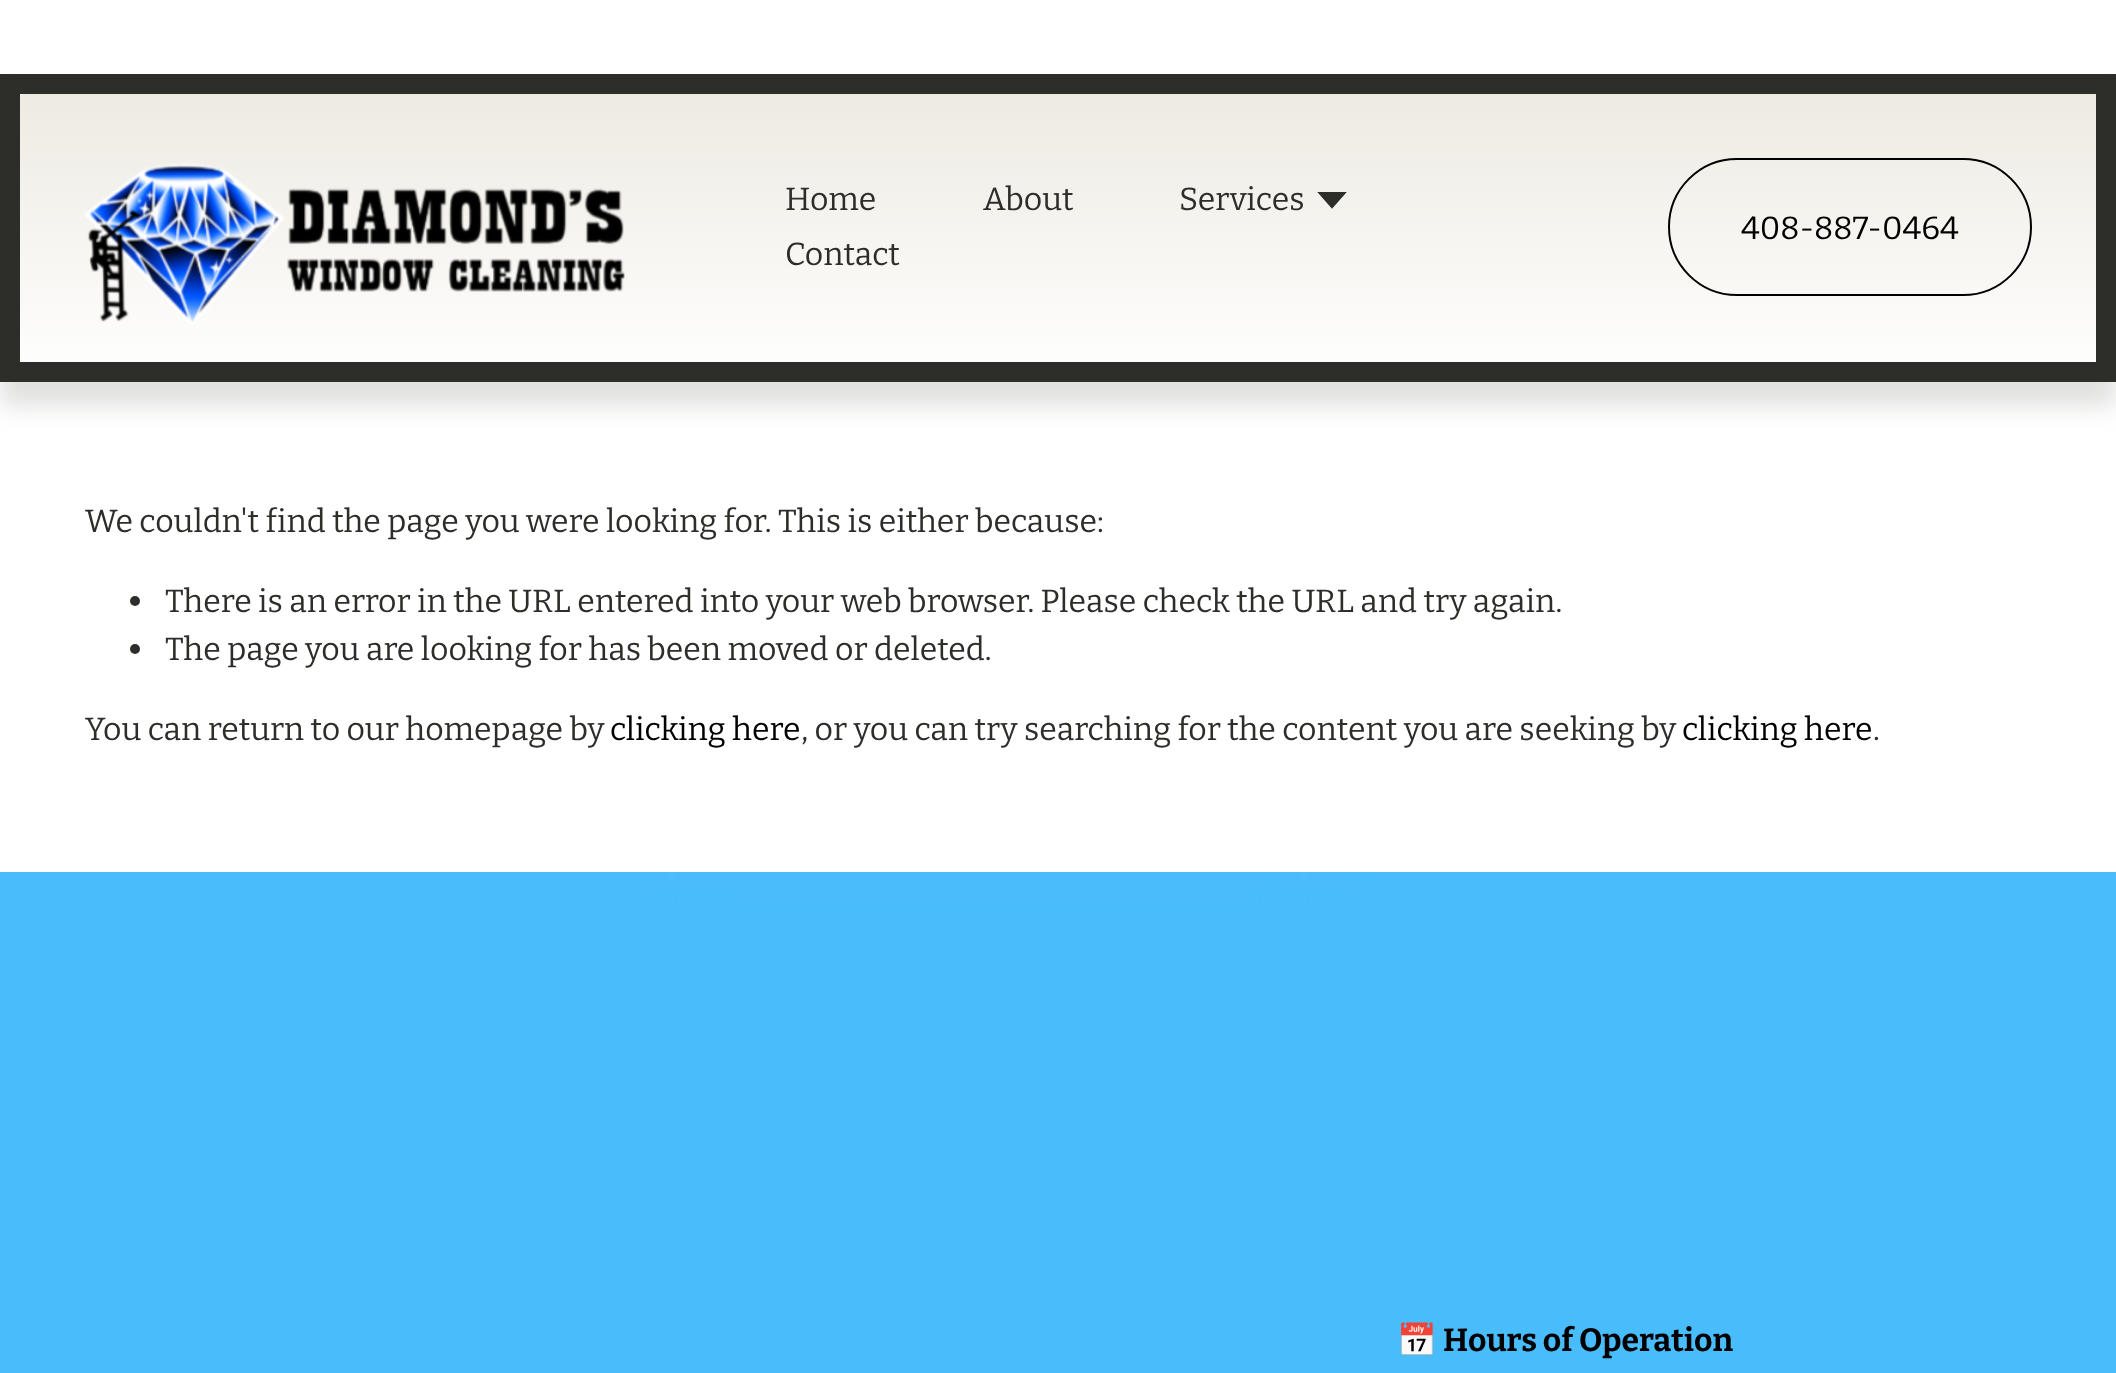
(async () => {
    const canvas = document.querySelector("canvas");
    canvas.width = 2116;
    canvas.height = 1373;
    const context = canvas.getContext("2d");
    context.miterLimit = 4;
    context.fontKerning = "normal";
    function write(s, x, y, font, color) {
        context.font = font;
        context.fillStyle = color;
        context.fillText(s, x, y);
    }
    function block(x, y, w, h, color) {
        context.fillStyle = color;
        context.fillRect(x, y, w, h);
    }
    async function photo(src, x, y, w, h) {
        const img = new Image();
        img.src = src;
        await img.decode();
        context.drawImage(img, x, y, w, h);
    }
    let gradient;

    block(0, 0, 2116, 1373, "rgb(255, 255, 255)");
    context.fillStyle = "rgb(224, 224, 223)";
    context.filter = "blur(12px)";
    context.beginPath();
    context.rect(0, 98, 2116, 308);
    context.fill();
    context.filter = "none";
    gradient = context.createLinearGradient(1058, 74, 1058, 382);
    gradient.addColorStop(0, "rgb(236, 233, 224)");
    gradient.addColorStop(1, "rgb(255, 255, 255)");
    context.fillStyle = gradient;
    context.fillRect(20, 94, 2076, 268);
    context.strokeStyle = "rgb(45, 45, 42)";
    context.lineWidth = 20;
    context.strokeRect(10, 84, 2096, 288);
    await photo("media/1.png", 84, 163, 541, 162);
    write("Home", 785, 210, "32px Bitter", "rgb(45, 45, 42)");
    write("About", 983, 210, "32px Bitter", "rgb(45, 45, 42)");
    write("Services", 1179, 210, "32px Bitter", "rgb(45, 45, 42)");
    context.beginPath();
    context.moveTo(1343.5, 193.5);
    context.lineTo(1332, 206.5);
    context.lineTo(1320.5, 193.5);
    context.closePath();
    context.fill();
    context.lineWidth = 2.9;
    context.lineCap = "square";
    context.stroke();
    write("Contact", 785, 265, "32px Bitter", "rgb(45, 45, 42)");
    context.beginPath();
    context.roundRect(1669, 159, 362, 136, 68);
    context.strokeStyle = "rgb(0, 0, 0)";
    context.lineWidth = 2;
    context.stroke();
    write("408-887-0464", 1741, 239, "32px Bitter", "rgb(0, 0, 0)");
    write("We couldn't find the page you were looking for. This is either because:", 85, 532, "32px Bitter", "rgb(45, 45, 42)");
    context.beginPath();
    context.arc(135, 601, 5, 0, Math.PI * 2);
    context.fill();
    write("There is an error in the URL entered into your web browser. Please check the URL and try again.", 165, 612, "32px Bitter", "rgb(45, 45, 42)");
    context.beginPath();
    context.arc(135, 649, 5, 0, Math.PI * 2);
    context.fill();
    write("The page you are looking for has been moved or deleted.", 165, 660, "32px Bitter", "rgb(45, 45, 42)");
    write("You can return to our homepage by", 85, 740, "32px Bitter", "rgb(45, 45, 42)");
    write("clicking here", 610, 740, "32px Bitter", "rgb(0, 0, 0)");
    write(", or you can try searching for the content you are seeking by", 801, 740, "32px Bitter", "rgb(45, 45, 42)");
    write("clicking here", 1682, 740, "32px Bitter", "rgb(0, 0, 0)");
    write(".", 1873, 740, "32px Bitter", "rgb(45, 45, 42)");
    await photo("media/2.png", 0, 872, 2116, 501);
    write("📅", 1397, 1351, "bold 32px Noto Color Emoji", "rgb(0, 0, 0)");
    write("Hours of Operation", 1443, 1351, "bold 32px Bitter", "rgb(0, 0, 0)");
})();
